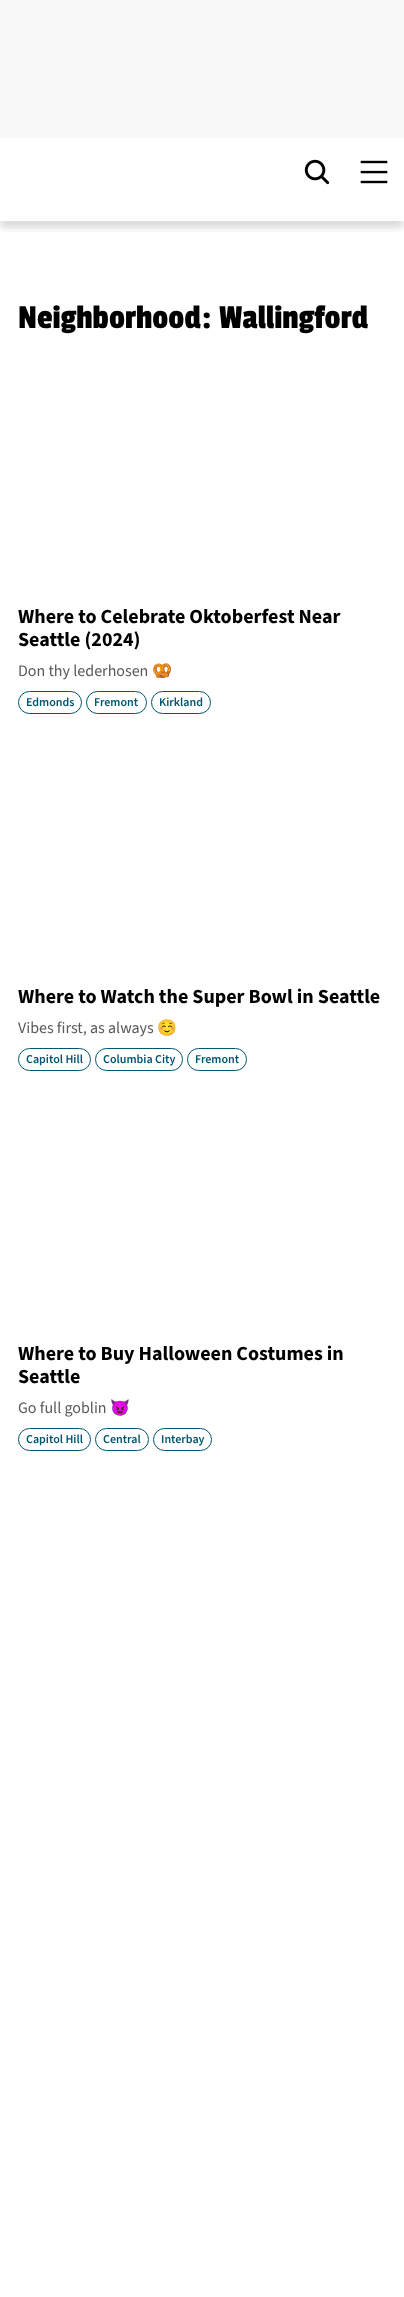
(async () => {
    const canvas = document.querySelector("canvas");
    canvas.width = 404;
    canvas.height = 2297;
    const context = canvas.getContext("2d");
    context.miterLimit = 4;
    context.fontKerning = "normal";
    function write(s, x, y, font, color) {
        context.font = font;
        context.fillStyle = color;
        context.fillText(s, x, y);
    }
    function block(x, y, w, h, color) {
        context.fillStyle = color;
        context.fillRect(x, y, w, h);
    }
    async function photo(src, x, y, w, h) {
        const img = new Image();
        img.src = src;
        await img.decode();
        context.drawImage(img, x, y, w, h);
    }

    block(0, 0, 404, 2297, "rgb(255, 255, 255)");
    block(0, 0, 404, 138, "rgb(248, 248, 248)");
    context.save();
    context.beginPath();
    context.rect(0, 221, 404, 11);
    context.clip();
    context.fillStyle = "rgba(0, 0, 0, 0.1)";
    context.filter = "blur(5px)";
    context.beginPath();
    context.rect(0, 145, 404, 83);
    context.fill();
    context.filter = "none";
    context.restore();
    context.save();
    context.beginPath();
    context.rect(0, 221, 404, 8);
    context.clip();
    context.fillStyle = "rgba(0, 0, 0, 0.05)";
    context.filter = "blur(5px)";
    context.beginPath();
    context.rect(0, 145, 404, 83);
    context.fill();
    context.filter = "none";
    context.restore();
    await photo("media/1.png", 304, 159, 26, 26);
    await photo("media/2.png", 360, 160, 28, 24);
    write("Neighborhood: Wallingford", 18, 328, "35px Passion One", "rgb(0, 0, 0)");
    write("Where to Celebrate Oktoberfest Near", 18, 623, "italic bold 20px 'Source Sans 3'", "rgb(0, 0, 0)");
    write("Seattle (2024)", 18, 646, "italic bold 20px 'Source Sans 3'", "rgb(0, 0, 0)");
    write("Don thy lederhosen", 18, 676, "italic 16px 'Source Sans 3'", "rgb(89, 89, 89)");
    write("🥨", 152, 676, "16px Noto Color Emoji", "rgb(89, 89, 89)");
    context.beginPath();
    context.roundRect(18.5, 691.5, 63, 22, 11);
    context.strokeStyle = "rgb(0, 86, 112)";
    context.stroke();
    write("Edmonds", 26, 706, "italic 600 12px 'Source Sans 3'", "rgb(0, 86, 112)");
    context.beginPath();
    context.roundRect(86.5, 691.5, 60, 22, 11);
    context.stroke();
    write("Fremont", 94, 706, "italic 600 12px 'Source Sans 3'", "rgb(0, 86, 112)");
    context.beginPath();
    context.roundRect(151.5, 691.5, 59, 22, 11);
    context.stroke();
    write("Kirkland", 159, 706, "italic 600 12px 'Source Sans 3'", "rgb(0, 86, 112)");
    write("Where to Watch the Super Bowl in Seattle", 18, 1003, "italic bold 20px 'Source Sans 3'", "rgb(0, 0, 0)");
    write("Vibes first, as always", 18, 1033, "italic 16px 'Source Sans 3'", "rgb(89, 89, 89)");
    write("☺️", 157, 1033, "16px Noto Color Emoji", "rgb(89, 89, 89)");
    context.beginPath();
    context.roundRect(18.5, 1048.5, 72, 22, 11);
    context.stroke();
    write("Capitol Hill", 26, 1063, "italic 600 12px 'Source Sans 3'", "rgb(0, 86, 112)");
    context.beginPath();
    context.roundRect(95.5, 1048.5, 87, 22, 11);
    context.stroke();
    write("Columbia City", 103, 1063, "italic 600 12px 'Source Sans 3'", "rgb(0, 86, 112)");
    context.beginPath();
    context.roundRect(187.5, 1048.5, 59, 22, 11);
    context.stroke();
    write("Fremont", 195, 1063, "italic 600 12px 'Source Sans 3'", "rgb(0, 86, 112)");
    write("Where to Buy Halloween Costumes in", 18, 1360, "italic bold 20px 'Source Sans 3'", "rgb(0, 0, 0)");
    write("Seattle", 18, 1383, "italic bold 20px 'Source Sans 3'", "rgb(0, 0, 0)");
    write("Go full goblin", 18, 1413, "italic 16px 'Source Sans 3'", "rgb(89, 89, 89)");
    write("😈", 110, 1413, "16px Noto Color Emoji", "rgb(89, 89, 89)");
    context.beginPath();
    context.roundRect(18.5, 1428.5, 72, 22, 11);
    context.stroke();
    write("Capitol Hill", 26, 1443, "italic 600 12px 'Source Sans 3'", "rgb(0, 86, 112)");
    context.beginPath();
    context.roundRect(95.5, 1428.5, 53, 22, 11);
    context.stroke();
    write("Central", 103, 1443, "italic 600 12px 'Source Sans 3'", "rgb(0, 86, 112)");
    context.beginPath();
    context.roundRect(153.5, 1428.5, 58, 22, 11);
    context.stroke();
    write("Interbay", 161, 1443, "italic 600 12px 'Source Sans 3'", "rgb(0, 86, 112)");
})();
